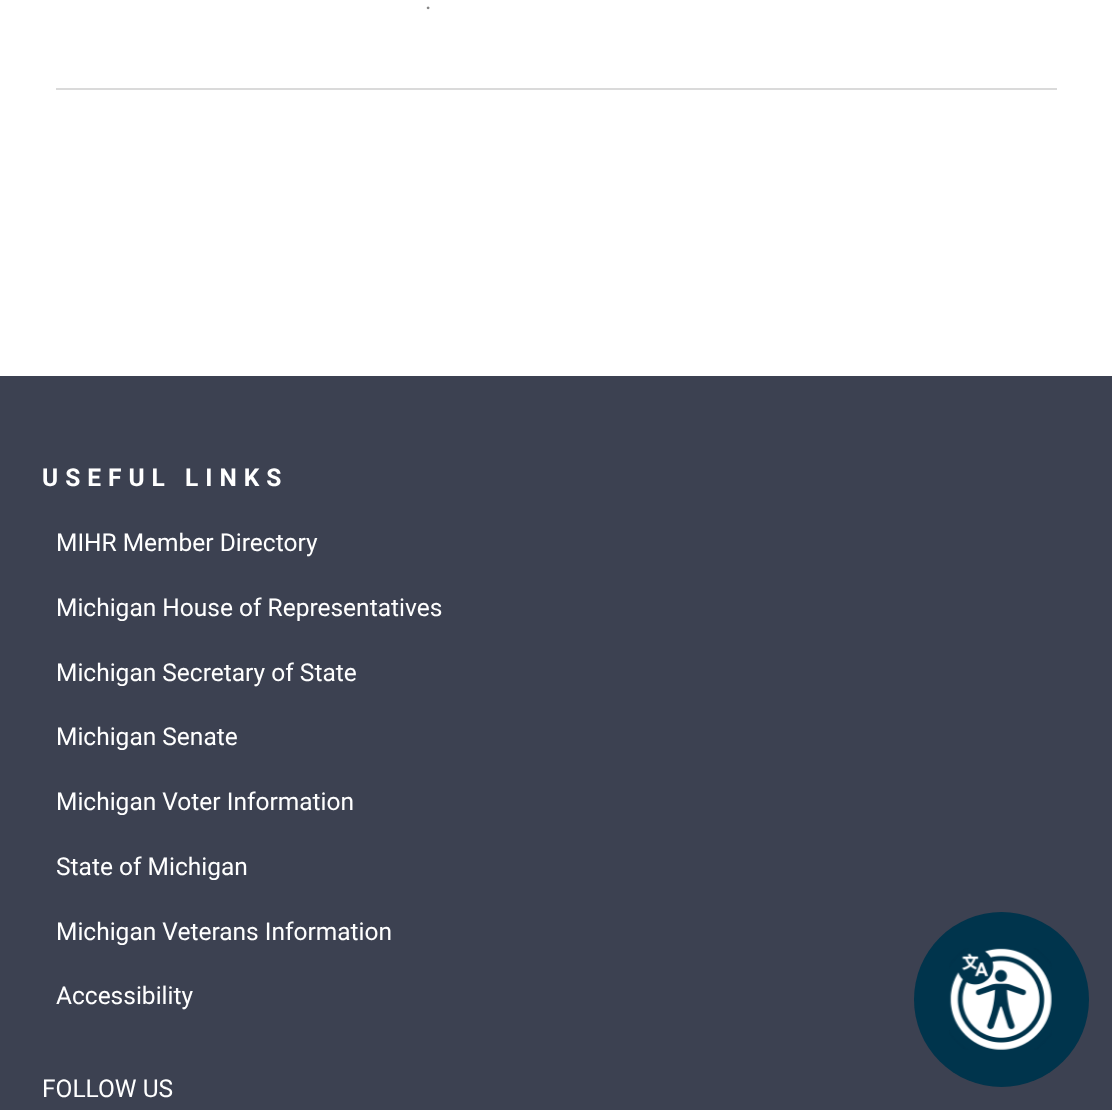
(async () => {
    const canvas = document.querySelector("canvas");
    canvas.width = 1112;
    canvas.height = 1110;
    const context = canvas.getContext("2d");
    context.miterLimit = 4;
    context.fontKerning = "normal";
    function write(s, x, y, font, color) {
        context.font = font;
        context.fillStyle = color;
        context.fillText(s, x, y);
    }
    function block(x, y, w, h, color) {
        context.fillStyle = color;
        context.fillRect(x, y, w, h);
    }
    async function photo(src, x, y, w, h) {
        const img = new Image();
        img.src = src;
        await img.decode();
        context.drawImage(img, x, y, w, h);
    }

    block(0, 0, 1112, 1110, "rgb(255, 255, 255)");
    write(".", 425, 9, "24.5px Roboto", "rgb(134, 134, 134)");
    block(56, 88, 1001, 2, "rgb(218, 218, 218)");
    block(0, 376, 1112, 734, "rgb(60, 65, 81)");
    context.letterSpacing = "7px";
    write("USEFUL LINKS", 42, 486, "bold 24.5px Roboto", "rgb(255, 255, 255)");
    context.letterSpacing = "0px";
    write("MIHR Member Directory", 56, 551, "24.5px Roboto", "rgb(255, 255, 255)");
    write("Michigan House of Representatives", 56, 616, "24.5px Roboto", "rgb(255, 255, 255)");
    write("Michigan Secretary of State", 56, 681, "24.5px Roboto", "rgb(255, 255, 255)");
    write("Michigan Senate", 56, 745, "24.5px Roboto", "rgb(255, 255, 255)");
    write("Michigan Voter Information", 56, 810, "24.5px Roboto", "rgb(255, 255, 255)");
    write("State of Michigan", 56, 875, "24.5px Roboto", "rgb(255, 255, 255)");
    write("Michigan Veterans Information", 56, 940, "24.5px Roboto", "rgb(255, 255, 255)");
    write("Accessibility", 56, 1004, "24.5px Roboto", "rgb(255, 255, 255)");
    write("FOLLOW US", 42, 1097, "24.5px Roboto", "rgb(255, 255, 255)");
    context.fillStyle = "rgb(0, 52, 76)";
    context.beginPath();
    context.arc(1001.5, 999.5, 87.5, 0, Math.PI * 2);
    context.fill();
    await photo("media/1.png", 949, 948, 103, 102);
})();
